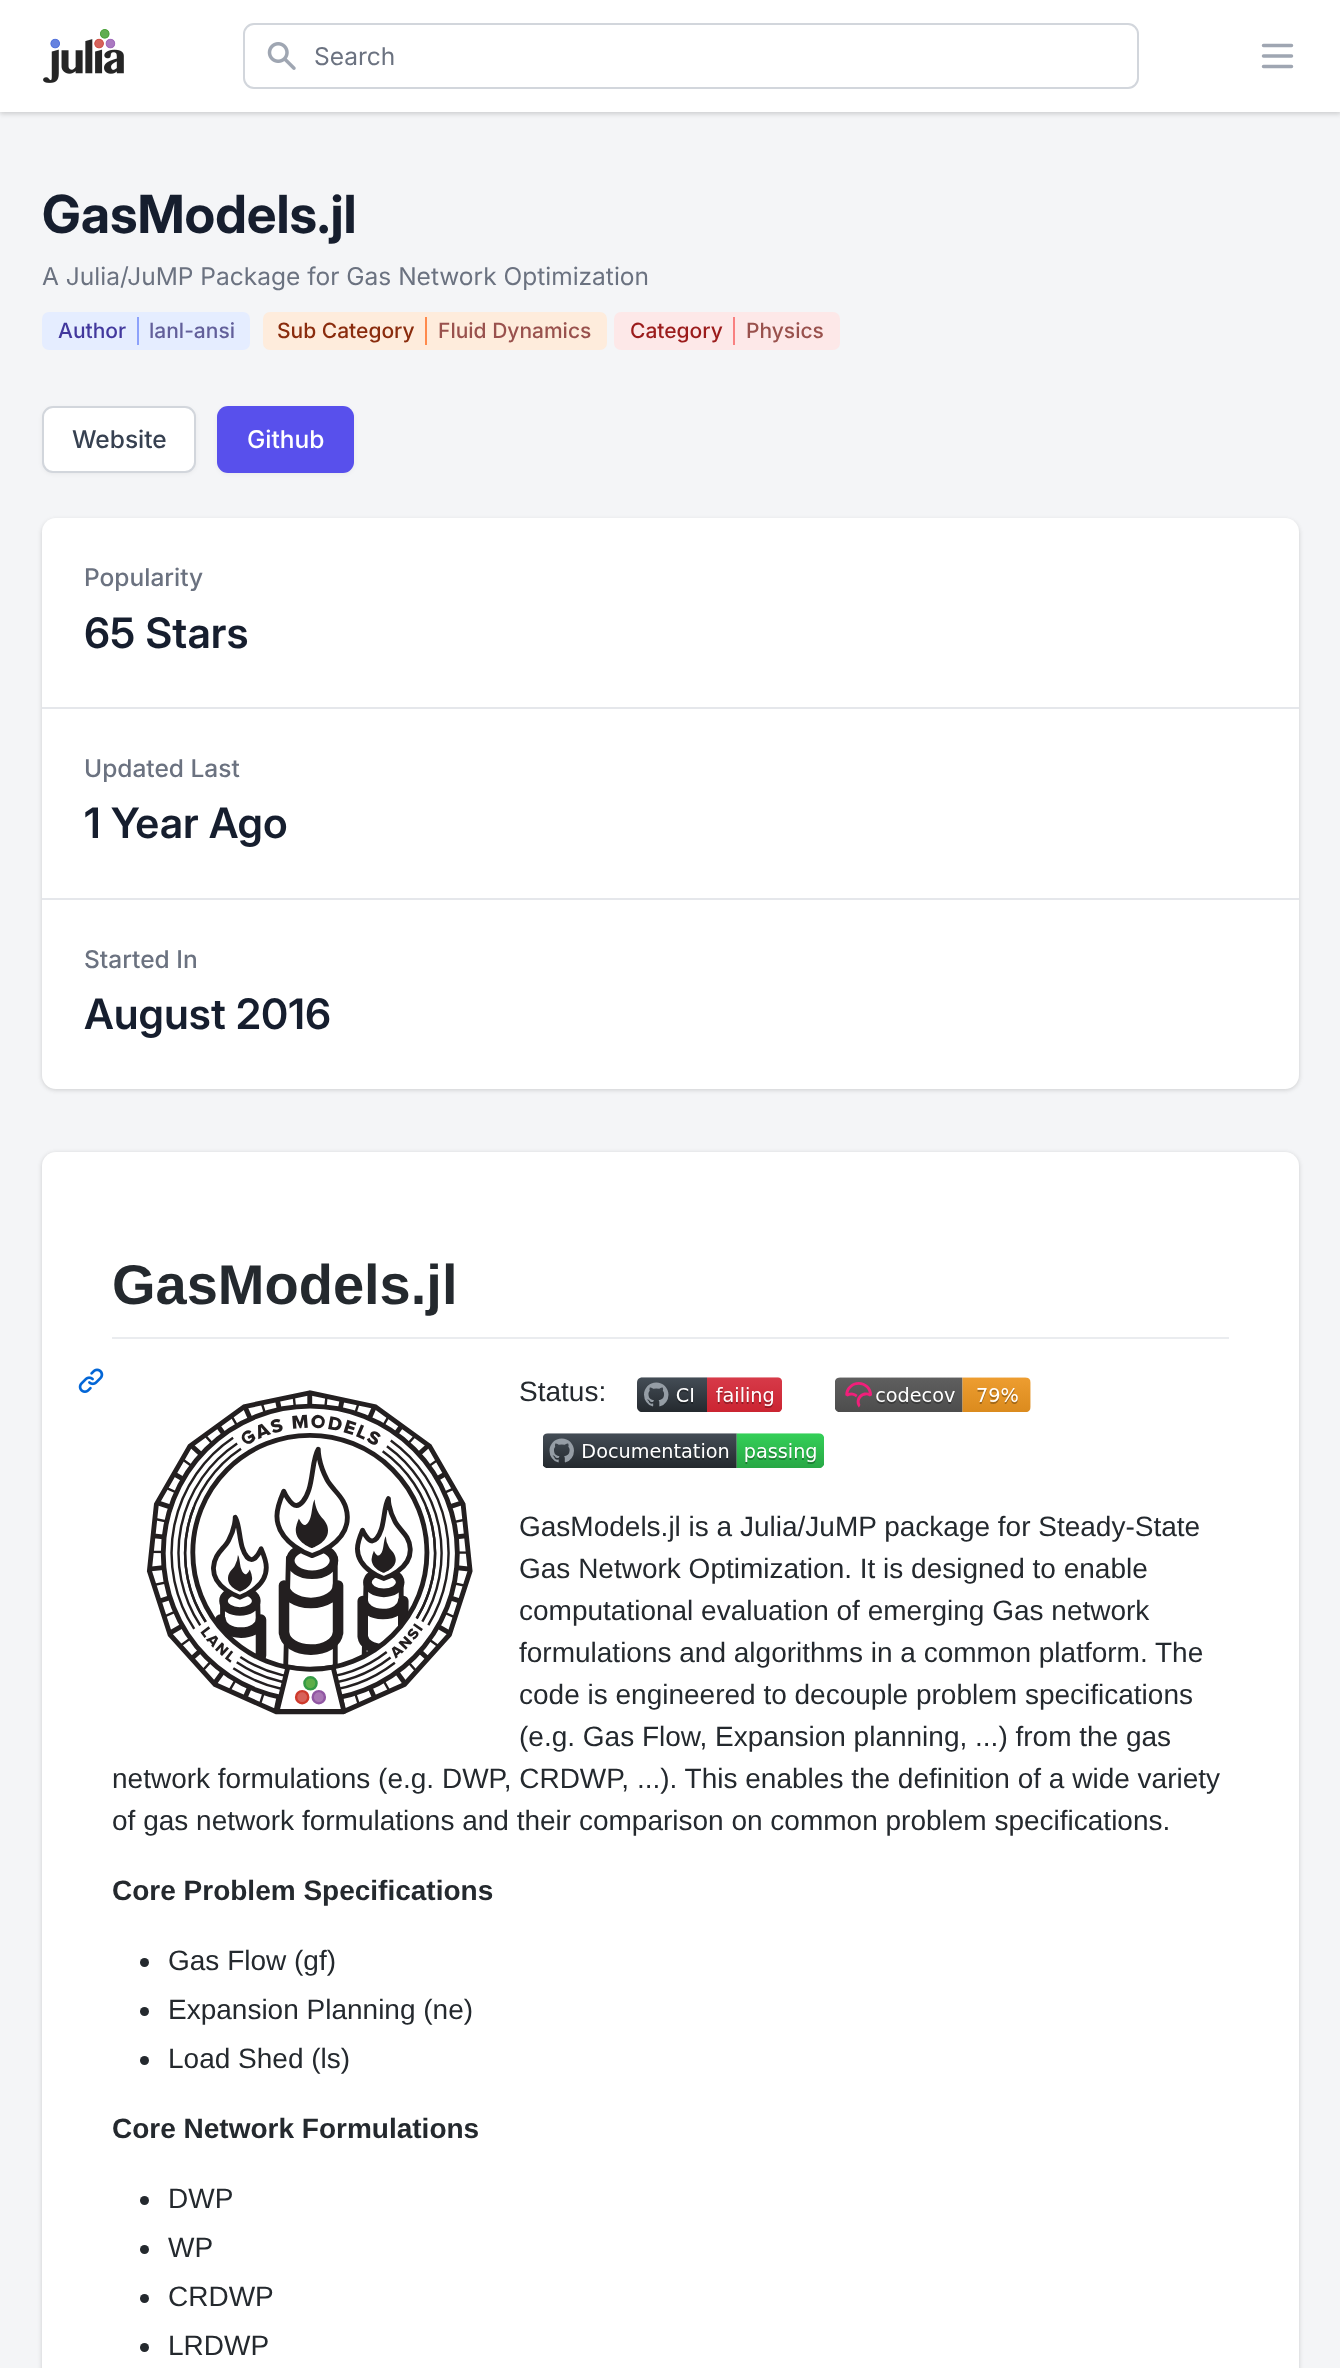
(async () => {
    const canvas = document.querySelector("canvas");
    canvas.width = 1340;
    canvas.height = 2368;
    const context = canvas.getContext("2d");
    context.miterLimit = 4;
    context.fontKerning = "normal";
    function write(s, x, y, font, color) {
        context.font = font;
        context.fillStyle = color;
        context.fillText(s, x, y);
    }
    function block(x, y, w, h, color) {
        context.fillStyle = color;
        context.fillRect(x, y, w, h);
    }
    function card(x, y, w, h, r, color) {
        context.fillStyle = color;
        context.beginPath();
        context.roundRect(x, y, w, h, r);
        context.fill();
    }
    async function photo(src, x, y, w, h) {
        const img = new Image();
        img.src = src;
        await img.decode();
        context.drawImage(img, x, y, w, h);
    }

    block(0, 0, 1340, 2368, "rgb(244, 245, 247)");
    context.fillStyle = "rgba(0, 0, 0, 0.06)";
    context.filter = "blur(2px)";
    context.beginPath();
    context.rect(0, 2, 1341, 112);
    context.fill();
    context.filter = "none";
    context.fillStyle = "rgba(0, 0, 0, 0.1)";
    context.filter = "blur(2.5px)";
    context.beginPath();
    context.rect(0, 2, 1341, 112);
    context.fill();
    context.filter = "none";
    block(0, 0, 1340, 112, "rgb(255, 255, 255)");
    await photo("media/1.png", 43, 29, 81, 54);
    context.beginPath();
    context.roundRect(244, 24, 894, 64, 10);
    context.strokeStyle = "rgb(210, 214, 220)";
    context.lineWidth = 2;
    context.stroke();
    await photo("media/2.png", 267, 42, 29, 28);
    write("Search", 314, 65, "24.5px Inter", "rgb(107, 114, 128)");
    context.beginPath();
    context.moveTo(1263.5, 45.5);
    context.lineTo(1291.5, 45.5);
    context.moveTo(1263.5, 56);
    context.lineTo(1291.5, 56);
    context.moveTo(1263.5, 66.5);
    context.lineTo(1291.5, 66.5);
    context.strokeStyle = "rgb(159, 166, 178)";
    context.lineWidth = 3.5;
    context.lineCap = "round";
    context.lineJoin = "round";
    context.stroke();
    write("GasModels.jl", 42, 233, "bold 52.5px Inter", "rgb(22, 30, 46)");
    write("A Julia/JuMP Package for Gas Network Optimization", 42, 285, "24.5px Inter", "rgb(107, 114, 128)");
    card(42, 312, 208, 38, 7, "rgb(229, 237, 255)");
    block(137, 317, 2, 28, "rgb(141, 162, 251)");
    write("Author", 58, 338, "500 21px Inter", "rgb(66, 56, 157)");
    write("lanl-ansi", 149, 338, "500 21px Inter", "rgb(98, 95, 154)");
    card(263, 312, 344, 38, 7, "rgb(254, 236, 220)");
    block(425, 317, 2, 28, "rgb(255, 138, 76)");
    write("Sub Category", 277, 338, "500 21px Inter", "rgb(138, 44, 13)");
    write("Fluid Dynamics", 438, 338, "500 21px Inter", "rgb(153, 81, 77)");
    card(614, 312, 226, 38, 7, "rgb(253, 232, 232)");
    block(733, 317, 2, 28, "rgb(249, 128, 128)");
    write("Category", 630, 338, "500 21px Inter", "rgb(155, 28, 28)");
    write("Physics", 746, 338, "500 21px Inter", "rgb(153, 81, 77)");
    context.fillStyle = "rgba(0, 0, 0, 0.05)";
    context.filter = "blur(2px)";
    context.beginPath();
    context.roundRect(42, 408, 154, 66, 11);
    context.fill();
    context.filter = "none";
    context.fillStyle = "rgb(255, 255, 255)";
    context.beginPath();
    context.roundRect(43, 407, 152, 65, 10);
    context.fill();
    context.strokeStyle = "rgb(210, 214, 220)";
    context.lineWidth = 2;
    context.lineJoin = "miter";
    context.stroke();
    write("Website", 72, 448, "500 24.5px Inter", "rgb(55, 65, 81)");
    context.fillStyle = "rgba(0, 0, 0, 0.05)";
    context.filter = "blur(2px)";
    context.beginPath();
    context.roundRect(217, 408, 137, 66, 11);
    context.fill();
    context.filter = "none";
    card(217, 406, 137, 67, 11, "rgb(88, 80, 236)");
    write("Github", 247, 448, "500 24.5px Inter", "rgb(255, 255, 255)");
    context.fillStyle = "rgba(0, 0, 0, 0.06)";
    context.filter = "blur(2px)";
    context.beginPath();
    context.roundRect(42, 520, 1257, 570, 14);
    context.fill();
    context.filter = "none";
    context.fillStyle = "rgba(0, 0, 0, 0.1)";
    context.filter = "blur(2.5px)";
    context.beginPath();
    context.roundRect(42, 520, 1257, 570, 14);
    context.fill();
    context.filter = "none";
    card(42, 518, 1257, 571, 14, "rgb(255, 255, 255)");
    write("Popularity", 84, 586, "500 24.5px Inter", "rgb(107, 114, 128)");
    write("65 Stars", 84, 648, "600 42px Inter", "rgb(22, 30, 46)");
    block(42, 707, 1257, 2, "rgb(229, 231, 235)");
    write("Updated Last", 84, 777, "500 24.5px Inter", "rgb(107, 114, 128)");
    write("1 Year Ago", 84, 838, "600 42px Inter", "rgb(22, 30, 46)");
    block(42, 898, 1257, 2, "rgb(229, 231, 235)");
    write("Started In", 84, 968, "500 24.5px Inter", "rgb(107, 114, 128)");
    write("August 2016", 84, 1029, "600 42px Inter", "rgb(22, 30, 46)");
    context.fillStyle = "rgba(0, 0, 0, 0.06)";
    context.filter = "blur(2px)";
    context.beginPath();
    context.roundRect(42, 1153, 1257, 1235, 14);
    context.fill();
    context.filter = "none";
    context.fillStyle = "rgba(0, 0, 0, 0.1)";
    context.filter = "blur(2.5px)";
    context.beginPath();
    context.roundRect(42, 1153, 1257, 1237, 14);
    context.fill();
    context.filter = "none";
    card(42, 1152, 1257, 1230, 14, "rgb(255, 255, 255)");
    block(112, 1337, 1117, 2, "rgb(234, 236, 239)");
    write("GasModels.jl", 112, 1304, "bold 56px Liberation Sans", "rgb(36, 41, 46)");
    await photo("media/3.png", 78, 1368, 26, 25);
    await photo("media/4.png", 146, 1390, 327, 325);
    write("Status:", 519, 1401, "28px Liberation Sans", "rgb(36, 41, 46)");
    await photo("media/5.png", 637, 1377, 145, 35);
    await photo("media/6.png", 835, 1377, 196, 35);
    await photo("media/7.png", 543, 1433, 281, 35);
    write("GasModels.jl is a Julia/JuMP package for Steady-State", 519, 1536, "28px Liberation Sans", "rgb(36, 41, 46)");
    write("Gas Network Optimization. It is designed to enable", 519, 1578, "28px Liberation Sans", "rgb(36, 41, 46)");
    write("computational evaluation of emerging Gas network", 519, 1620, "28px Liberation Sans", "rgb(36, 41, 46)");
    write("formulations and algorithms in a common platform. The", 519, 1662, "28px Liberation Sans", "rgb(36, 41, 46)");
    write("code is engineered to decouple problem specifications", 519, 1704, "28px Liberation Sans", "rgb(36, 41, 46)");
    write("(e.g. Gas Flow, Expansion planning, ...) from the gas", 519, 1746, "28px Liberation Sans", "rgb(36, 41, 46)");
    write("network formulations (e.g. DWP, CRDWP, ...). This enables the definition of a wide variety", 112, 1788, "28px Liberation Sans", "rgb(36, 41, 46)");
    write("of gas network formulations and their comparison on common problem specifications.", 112, 1830, "28px Liberation Sans", "rgb(36, 41, 46)");
    write("Core Problem Specifications", 112, 1900, "bold 28px Liberation Sans", "rgb(36, 41, 46)");
    context.beginPath();
    context.arc(144.5, 1962.5, 4.5, 0, Math.PI * 2);
    context.fill();
    write("Gas Flow (gf)", 168, 1970, "28px Liberation Sans", "rgb(36, 41, 46)");
    context.beginPath();
    context.arc(144.5, 2011.5, 4.5, 0, Math.PI * 2);
    context.fill();
    write("Expansion Planning (ne)", 168, 2019, "28px Liberation Sans", "rgb(36, 41, 46)");
    context.beginPath();
    context.arc(144.5, 2060.5, 4.5, 0, Math.PI * 2);
    context.fill();
    write("Load Shed (ls)", 168, 2068, "28px Liberation Sans", "rgb(36, 41, 46)");
    write("Core Network Formulations", 112, 2138, "bold 28px Liberation Sans", "rgb(36, 41, 46)");
    context.beginPath();
    context.arc(144.5, 2200.5, 4.5, 0, Math.PI * 2);
    context.fill();
    write("DWP", 168, 2208, "28px Liberation Sans", "rgb(36, 41, 46)");
    context.beginPath();
    context.arc(144.5, 2249.5, 4.5, 0, Math.PI * 2);
    context.fill();
    write("WP", 168, 2257, "28px Liberation Sans", "rgb(36, 41, 46)");
    context.beginPath();
    context.arc(144.5, 2298.5, 4.5, 0, Math.PI * 2);
    context.fill();
    write("CRDWP", 168, 2306, "28px Liberation Sans", "rgb(36, 41, 46)");
    context.beginPath();
    context.arc(144.5, 2347.5, 4.5, 0, Math.PI * 2);
    context.fill();
    write("LRDWP", 168, 2355, "28px Liberation Sans", "rgb(36, 41, 46)");
})();
